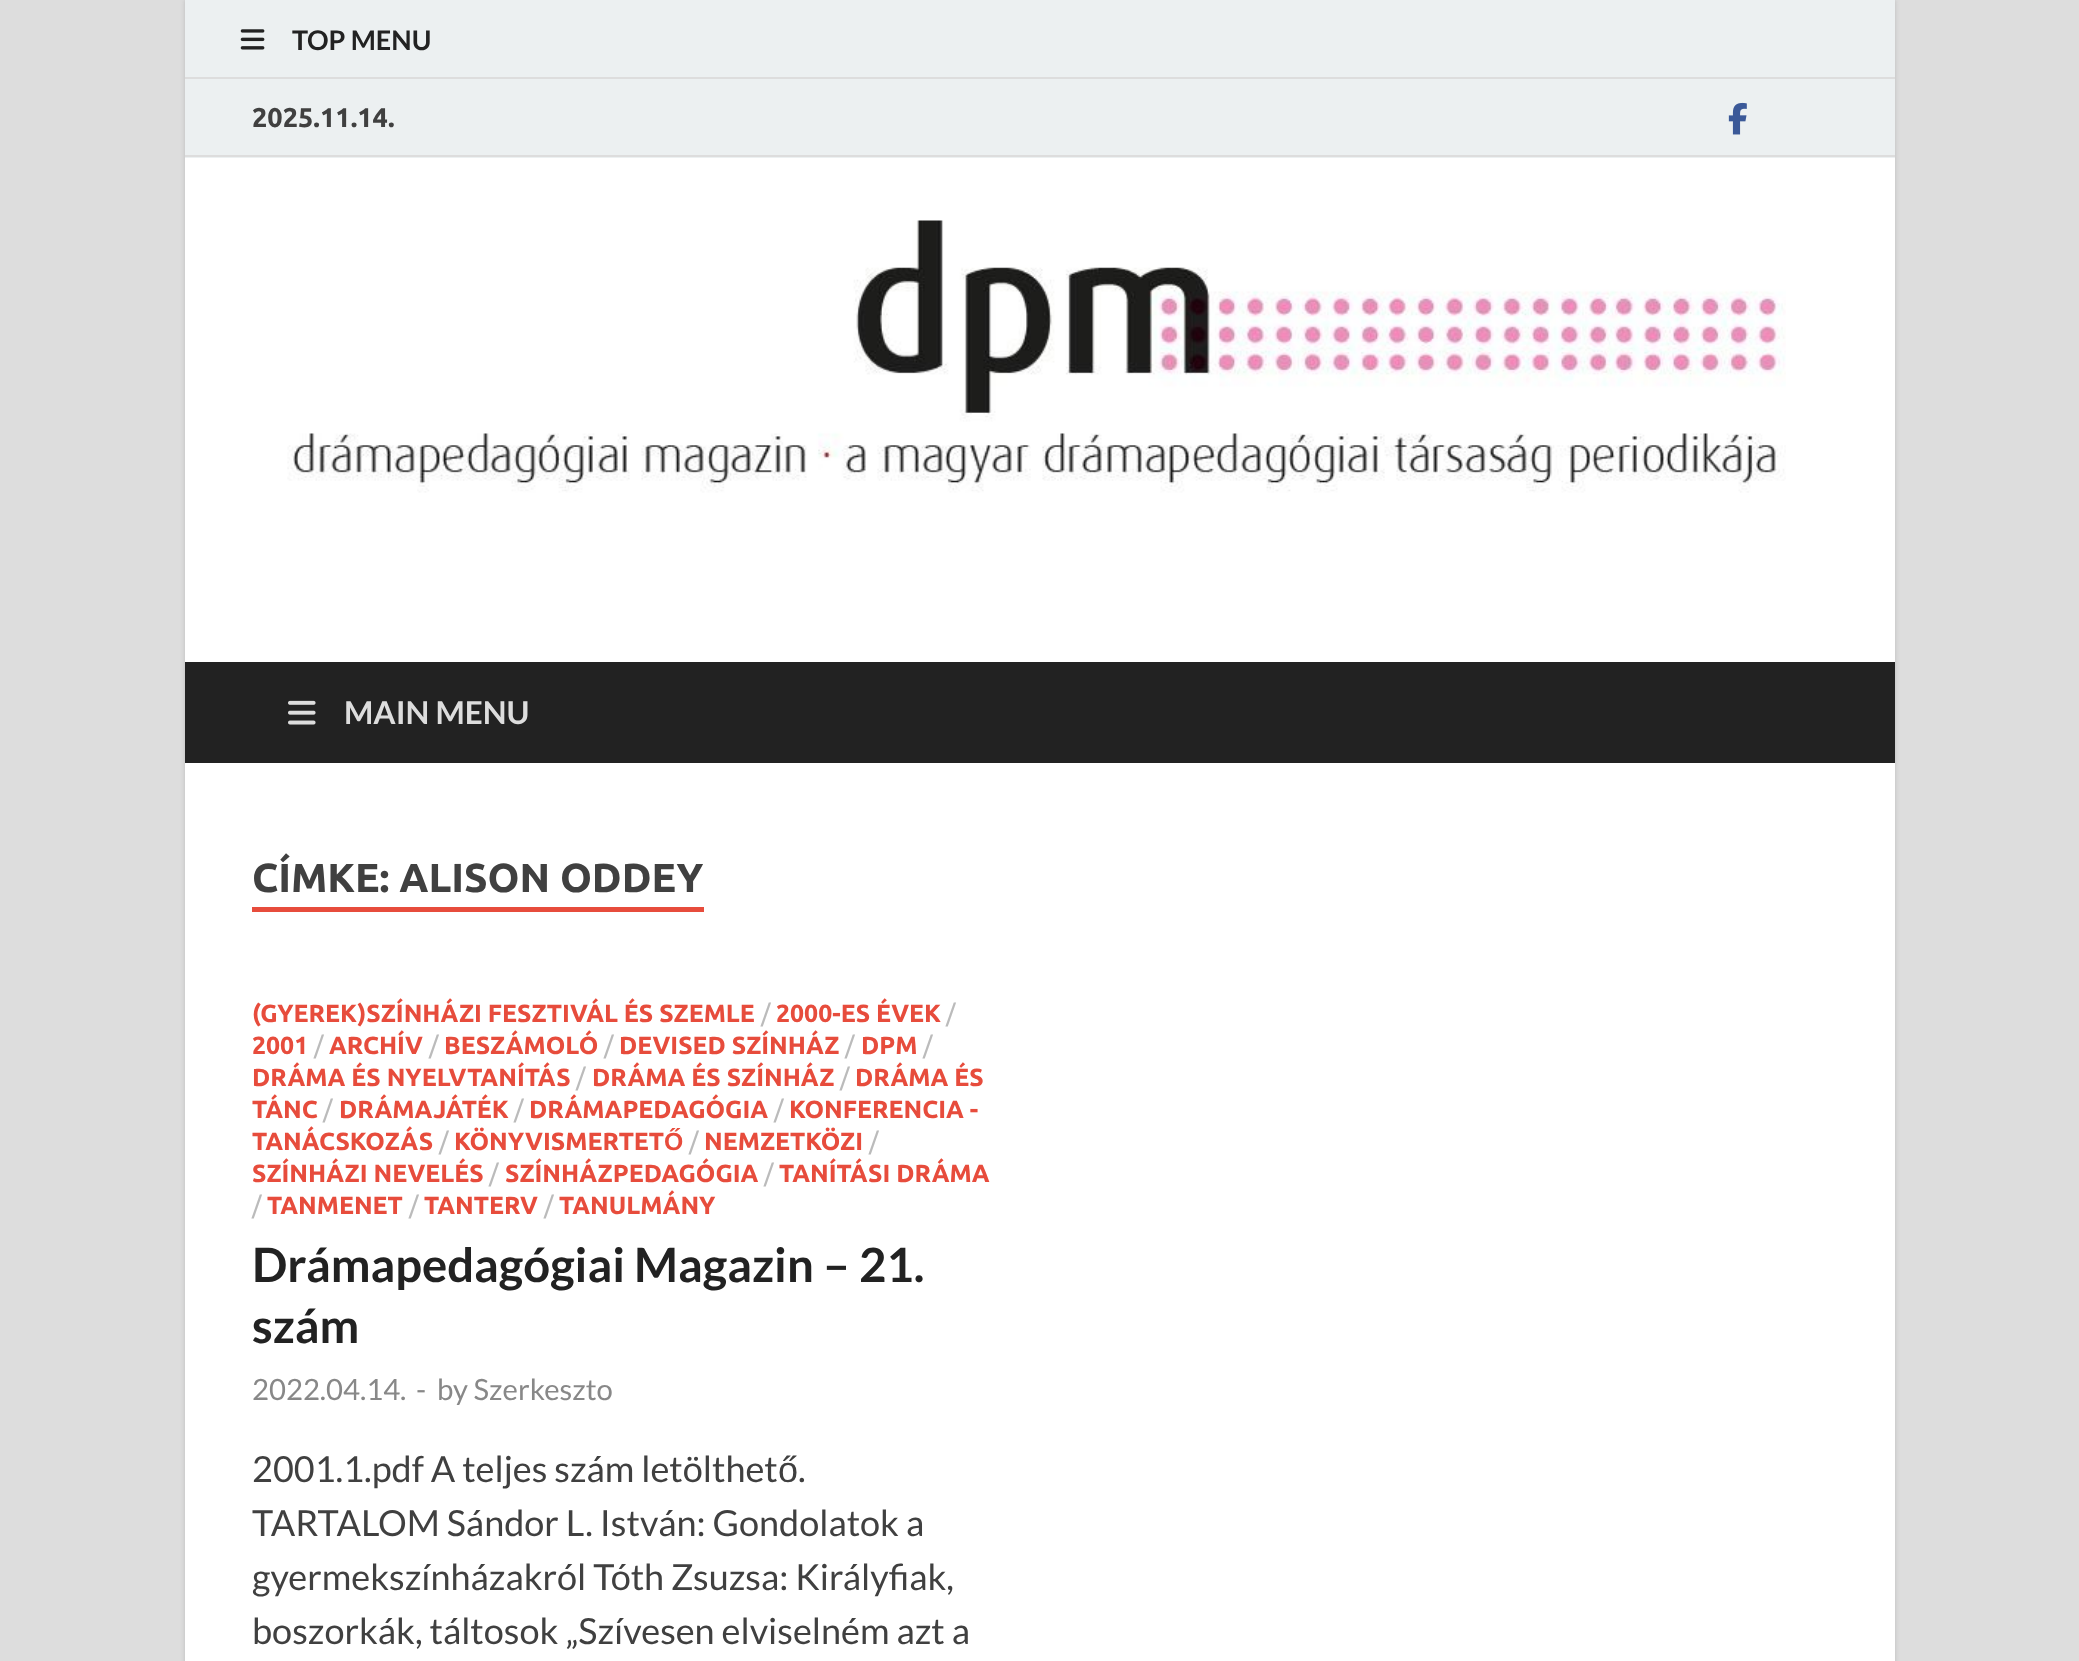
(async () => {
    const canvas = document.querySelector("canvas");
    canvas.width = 2079;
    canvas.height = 1661;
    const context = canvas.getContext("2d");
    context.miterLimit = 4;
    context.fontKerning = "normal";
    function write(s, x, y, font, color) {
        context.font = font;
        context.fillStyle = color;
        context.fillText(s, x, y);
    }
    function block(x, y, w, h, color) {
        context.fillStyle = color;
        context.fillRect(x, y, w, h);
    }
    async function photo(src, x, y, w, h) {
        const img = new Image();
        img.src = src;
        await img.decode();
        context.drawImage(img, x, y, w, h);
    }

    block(0, 0, 2079, 1661, "rgb(221, 221, 221)");
    context.fillStyle = "rgb(187, 187, 187)";
    context.filter = "blur(2px)";
    context.beginPath();
    context.rect(185, 0, 1710, 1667);
    context.fill();
    context.filter = "none";
    block(185, 158, 1710, 1503, "rgb(255, 255, 255)");
    block(185, 0, 1710, 77, "rgb(236, 240, 241)");
    block(185, 77, 1710, 2, "rgb(221, 221, 221)");
    await photo("media/1.png", 240, 29, 25, 21);
    write("TOP MENU", 292, 50, "bold 27px Lato", "rgb(34, 34, 34)");
    block(185, 79, 1710, 79, "rgb(236, 240, 241)");
    block(185, 155, 1710, 2, "rgb(221, 221, 221)");
    write("2025.11.14.", 252, 127, "bold 27px Ubuntu", "rgb(64, 64, 64)");
    await photo("media/2.png", 1728, 102, 19, 33);
    await photo("media/3.png", 287, 220, 1499, 273);
    block(185, 662, 1710, 101, "rgb(34, 34, 34)");
    await photo("media/4.png", 288, 700, 28, 25);
    write("MAIN MENU", 344, 724, "bold 31.5px Lato", "rgb(221, 221, 221)");
    write("CÍMKE: ALISON ODDEY", 252, 892, "bold 40.5px Ubuntu", "rgb(64, 64, 64)");
    block(252, 907, 452, 5, "rgb(231, 76, 60)");
    write("(GYEREK)SZÍNHÁZI FESZTIVÁL ÉS SZEMLE", 252, 1022, "bold 24.75px Ubuntu", "rgb(231, 76, 60)");
    write("/", 761, 1022, "24.75px Ubuntu", "rgb(187, 187, 187)");
    write("2000-ES ÉVEK", 776, 1022, "bold 24.75px Ubuntu", "rgb(231, 76, 60)");
    write("/", 946, 1022, "24.75px Ubuntu", "rgb(187, 187, 187)");
    write("2001", 252, 1054, "bold 24.75px Ubuntu", "rgb(231, 76, 60)");
    write("/", 314, 1054, "24.75px Ubuntu", "rgb(187, 187, 187)");
    write("ARCHÍV", 329, 1054, "bold 24.75px Ubuntu", "rgb(231, 76, 60)");
    write("/", 429, 1054, "24.75px Ubuntu", "rgb(187, 187, 187)");
    write("BESZÁMOLÓ", 444, 1054, "bold 24.75px Ubuntu", "rgb(231, 76, 60)");
    write("/", 604, 1054, "24.75px Ubuntu", "rgb(187, 187, 187)");
    write("DEVISED SZÍNHÁZ", 619, 1054, "bold 24.75px Ubuntu", "rgb(231, 76, 60)");
    write("/", 845, 1054, "24.75px Ubuntu", "rgb(187, 187, 187)");
    write("DPM", 861, 1054, "bold 24.75px Ubuntu", "rgb(231, 76, 60)");
    write("/", 923, 1054, "24.75px Ubuntu", "rgb(187, 187, 187)");
    write("DRÁMA ÉS NYELVTANÍTÁS", 252, 1086, "bold 24.75px Ubuntu", "rgb(231, 76, 60)");
    write("/", 576, 1086, "24.75px Ubuntu", "rgb(187, 187, 187)");
    write("DRÁMA ÉS SZÍNHÁZ", 592, 1086, "bold 24.75px Ubuntu", "rgb(231, 76, 60)");
    write("/", 840, 1086, "24.75px Ubuntu", "rgb(187, 187, 187)");
    write("DRÁMA ÉS", 855, 1086, "bold 24.75px Ubuntu", "rgb(231, 76, 60)");
    write("TÁNC", 252, 1118, "bold 24.75px Ubuntu", "rgb(231, 76, 60)");
    write("/", 323, 1118, "24.75px Ubuntu", "rgb(187, 187, 187)");
    write("DRÁMAJÁTÉK", 339, 1118, "bold 24.75px Ubuntu", "rgb(231, 76, 60)");
    write("/", 514, 1118, "24.75px Ubuntu", "rgb(187, 187, 187)");
    write("DRÁMAPEDAGÓGIA", 529, 1118, "bold 24.75px Ubuntu", "rgb(231, 76, 60)");
    write("/", 774, 1118, "24.75px Ubuntu", "rgb(187, 187, 187)");
    write("KONFERENCIA -", 789, 1118, "bold 24.75px Ubuntu", "rgb(231, 76, 60)");
    write("TANÁCSKOZÁS", 252, 1150, "bold 24.75px Ubuntu", "rgb(231, 76, 60)");
    write("/", 439, 1150, "24.75px Ubuntu", "rgb(187, 187, 187)");
    write("KÖNYVISMERTET", 454, 1150, "bold 24.75px Ubuntu", "rgb(231, 76, 60)");
    write("Ő", 664, 1150, "bold 24.75px Liberation Sans", "rgb(231, 76, 60)");
    write("/", 689, 1150, "24.75px Ubuntu", "rgb(187, 187, 187)");
    write("NEMZETKÖZI", 704, 1150, "bold 24.75px Ubuntu", "rgb(231, 76, 60)");
    write("/", 869, 1150, "24.75px Ubuntu", "rgb(187, 187, 187)");
    write("SZÍNHÁZI NEVELÉS", 252, 1182, "bold 24.75px Ubuntu", "rgb(231, 76, 60)");
    write("/", 489, 1182, "24.75px Ubuntu", "rgb(187, 187, 187)");
    write("SZÍNHÁZPEDAGÓGIA", 505, 1182, "bold 24.75px Ubuntu", "rgb(231, 76, 60)");
    write("/", 764, 1182, "24.75px Ubuntu", "rgb(187, 187, 187)");
    write("TANÍTÁSI DRÁMA", 779, 1182, "bold 24.75px Ubuntu", "rgb(231, 76, 60)");
    write("/", 252, 1214, "24.75px Ubuntu", "rgb(187, 187, 187)");
    write("TANMENET", 267, 1214, "bold 24.75px Ubuntu", "rgb(231, 76, 60)");
    write("/", 409, 1214, "24.75px Ubuntu", "rgb(187, 187, 187)");
    write("TANTERV", 424, 1214, "bold 24.75px Ubuntu", "rgb(231, 76, 60)");
    write("/", 544, 1214, "24.75px Ubuntu", "rgb(187, 187, 187)");
    write("TANULMÁNY", 559, 1214, "bold 24.75px Ubuntu", "rgb(231, 76, 60)");
    write("Drámapedagógiai Magazin – 21.", 252, 1282, "bold 47.25px Lato", "rgb(34, 34, 34)");
    write("szám", 252, 1343, "bold 47.25px Lato", "rgb(34, 34, 34)");
    write("2022.04.14.", 252, 1400, "29.25px Lato", "rgb(136, 136, 136)");
    write("-", 416, 1400, "29.25px Lato", "rgb(136, 136, 136)");
    write("by Szerkeszto", 437, 1400, "29.25px Lato", "rgb(136, 136, 136)");
    write("2001.1.pdf A teljes szám letölthet", 252, 1482, "36px Lato", "rgb(64, 64, 64)");
    write("ő", 778, 1482, "36px Liberation Sans", "rgb(64, 64, 64)");
    write(".", 798, 1482, "36px Lato", "rgb(64, 64, 64)");
    write("TARTALOM Sándor L. István: Gondolatok a", 252, 1536, "36px Lato", "rgb(64, 64, 64)");
    write("gyermekszínházakról Tóth Zsuzsa: Királyfiak,", 252, 1590, "36px Lato", "rgb(64, 64, 64)");
    write("boszorkák, táltosok „Szívesen elviselném azt a", 252, 1644, "36px Lato", "rgb(64, 64, 64)");
})();
